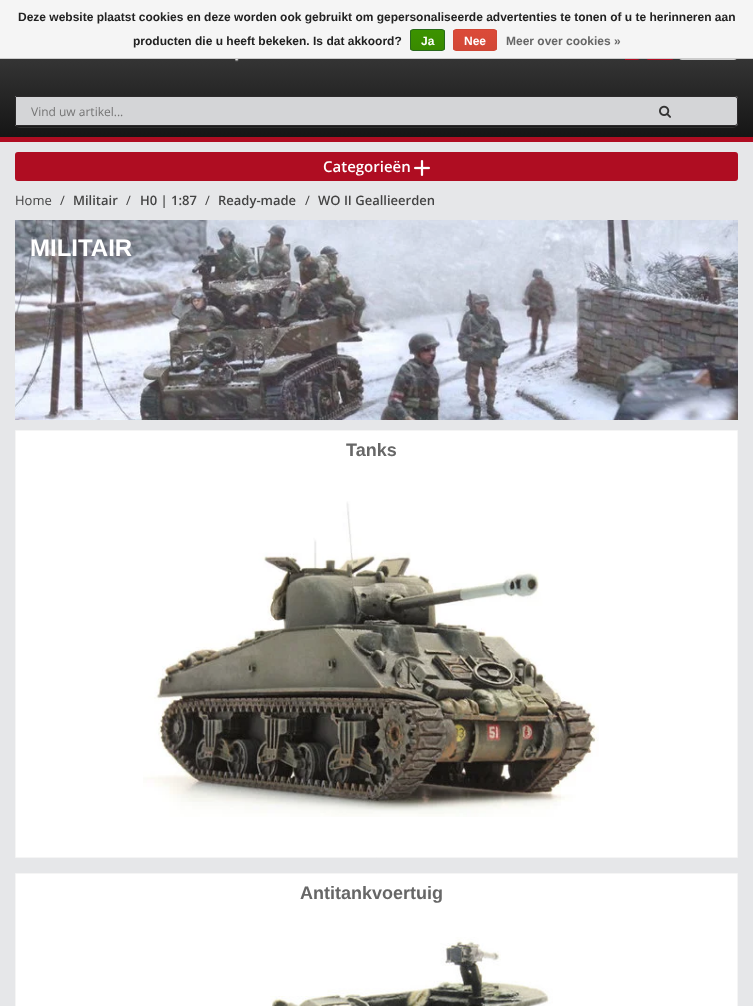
(async () => {
    const canvas = document.querySelector("canvas");
    canvas.width = 753;
    canvas.height = 1006;
    const context = canvas.getContext("2d");
    context.miterLimit = 4;
    context.fontKerning = "normal";
    function write(s, x, y, font, color) {
        context.font = font;
        context.fillStyle = color;
        context.fillText(s, x, y);
    }
    function block(x, y, w, h, color) {
        context.fillStyle = color;
        context.fillRect(x, y, w, h);
    }
    function card(x, y, w, h, r, color) {
        context.fillStyle = color;
        context.beginPath();
        context.roundRect(x, y, w, h, r);
        context.fill();
    }
    async function photo(src, x, y, w, h) {
        const img = new Image();
        img.src = src;
        await img.decode();
        context.drawImage(img, x, y, w, h);
    }
    let gradient;

    block(0, 0, 753, 1006, "rgb(230, 231, 233)");
    gradient = context.createLinearGradient(377, 0, 377, 142);
    gradient.addColorStop(0, "rgb(76, 76, 76)");
    gradient.addColorStop(1, "rgb(19, 19, 19)");
    context.fillStyle = gradient;
    context.fillRect(0, 59, 753, 78);
    context.fillStyle = "rgb(175, 13, 34)";
    context.beginPath();
    context.roundRect(625, 30, 17, 30, [0, 5, 5, 0]);
    context.fill();
    card(646, 30, 28, 30, 3, "rgb(175, 13, 34)");
    card(679, 30, 58, 30, 3, "rgb(204, 204, 204)");
    block(0, 0, 753, 58, "rgb(245, 245, 245)");
    block(0, 58, 753, 1, "rgb(204, 204, 204)");
    write("Deze website plaatst cookies en deze worden ook gebruikt om gepersonaliseerde advertenties te tonen of u te herinneren aan", 18, 21, "bold 12px Liberation Sans", "rgb(34, 34, 34)");
    write("producten die u heeft bekeken. Is dat akkoord?", 133, 45, "bold 12px Liberation Sans", "rgb(34, 34, 34)");
    context.save();
    context.beginPath();
    context.roundRect(410, 29, 35, 22, 3);
    context.clip();
    gradient = context.createLinearGradient(428, 30, 428, 50);
    gradient.addColorStop(0, "rgb(60, 147, 0)");
    gradient.addColorStop(1, "rgb(57, 138, 0)");
    context.fillStyle = gradient;
    context.fillRect(410, 30, 35, 20);
    context.restore();
    context.beginPath();
    context.roundRect(410.5, 29.5, 34, 21, 2.5);
    context.strokeStyle = "rgb(41, 105, 29)";
    context.stroke();
    write("Ja", 421, 45, "bold 12px Liberation Sans", "rgb(255, 255, 255)");
    context.save();
    context.beginPath();
    context.roundRect(453, 29, 44, 22, 3);
    context.clip();
    gradient = context.createLinearGradient(475, 30, 475, 50);
    gradient.addColorStop(0, "rgb(220, 74, 56)");
    gradient.addColorStop(1, "rgb(209, 72, 54)");
    context.fillStyle = gradient;
    context.fillRect(453, 30, 44, 20);
    context.restore();
    context.beginPath();
    context.roundRect(453.5, 29.5, 43, 21, 2.5);
    context.strokeStyle = "rgb(209, 72, 54)";
    context.stroke();
    write("Nee", 464, 45, "bold 12px Liberation Sans", "rgb(255, 255, 255)");
    write("Meer over cookies »", 506, 45, "bold 12px Liberation Sans", "rgb(103, 103, 103)");
    block(0, 137, 753, 5, "rgb(175, 13, 34)");
    await photo("media/1.png", 235, 59, 4, 3);
    context.fillStyle = "rgb(48, 48, 48)";
    context.beginPath();
    context.moveTo(15, 122);
    context.bezierCurveTo(15, 125, 17, 128, 20, 128);
    context.lineTo(733, 128);
    context.bezierCurveTo(736, 128, 738, 125, 738, 122);
    context.bezierCurveTo(738, 125, 736, 127, 733, 127);
    context.lineTo(20, 127);
    context.bezierCurveTo(17, 127, 15, 125, 15, 122);
    context.closePath();
    context.fill();
    context.fillStyle = "rgb(212, 213, 215)";
    context.beginPath();
    context.roundRect(15, 96, 578, 30, [2, 0, 0, 2]);
    context.fill();
    block(16, 96, 577, 1, "rgb(44, 42, 43)");
    block(16, 125, 577, 1, "rgb(44, 42, 43)");
    block(15, 97, 1, 28, "rgb(44, 42, 43)");
    write("Vind uw artikel...", 31, 116, "12px Open Sans", "rgb(117, 117, 117)");
    context.fillStyle = "rgb(212, 213, 215)";
    context.beginPath();
    context.roundRect(593, 96, 145, 30, [0, 3, 3, 0]);
    context.fill();
    context.fillStyle = "rgb(44, 42, 43)";
    context.beginPath();
    context.moveTo(593, 96);
    context.lineTo(735, 96);
    context.bezierCurveTo(737, 96, 738, 97, 738, 99);
    context.lineTo(738, 123);
    context.bezierCurveTo(738, 125, 737, 126, 735, 126);
    context.lineTo(593, 126);
    context.closePath();
    context.moveTo(593, 97);
    context.lineTo(735, 97);
    context.bezierCurveTo(736, 97, 737, 98, 737, 99);
    context.lineTo(737, 123);
    context.bezierCurveTo(737, 124, 736, 125, 735, 125);
    context.lineTo(593, 125);
    context.closePath();
    context.fill("evenodd");
    await photo("media/2.png", 659, 105, 12, 13);
    card(15, 152, 723, 29, 3, "rgb(175, 13, 34)");
    write("Categorieën", 323, 172, "600 15px Open Sans", "rgb(255, 255, 255)");
    await photo("media/3.png", 414, 160, 16, 16);
    write("Home", 15, 205, "13px Open Sans", "rgb(68, 68, 68)");
    write("/", 60, 205, "13px Open Sans", "rgb(68, 68, 68)");
    write("Militair", 73, 205, "600 13px Open Sans", "rgb(68, 68, 68)");
    write("/", 126, 205, "13px Open Sans", "rgb(68, 68, 68)");
    write("H0 | 1:87", 140, 205, "600 13px Open Sans", "rgb(68, 68, 68)");
    write("/", 205, 205, "13px Open Sans", "rgb(68, 68, 68)");
    write("Ready-made", 218, 205, "600 13px Open Sans", "rgb(68, 68, 68)");
    write("/", 305, 205, "13px Open Sans", "rgb(68, 68, 68)");
    write("WO II Geallieerden", 318, 205, "600 13px Open Sans", "rgb(68, 68, 68)");
    await photo("media/4.png", 15, 220, 723, 200);
    write("MILITAIR", 30, 256, "bold 24px Liberation Sans", "rgb(255, 255, 255)");
    context.beginPath();
    context.rect(15.5, 430.5, 722, 427);
    context.fill();
    context.strokeStyle = "rgb(245, 245, 245)";
    context.stroke();
    write("Tanks", 346, 456, "bold 18px Liberation Sans", "rgb(103, 103, 103)");
    await photo("media/5.png", 143, 501, 456, 316);
    context.fillStyle = "rgb(255, 255, 255)";
    context.beginPath();
    context.rect(15.5, 873.5, 722, 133);
    context.fill();
    context.stroke();
    write("Antitankvoertuig", 300, 899, "bold 18px Liberation Sans", "rgb(103, 103, 103)");
    await photo("media/6.png", 270, 937, 283, 69);
})();
